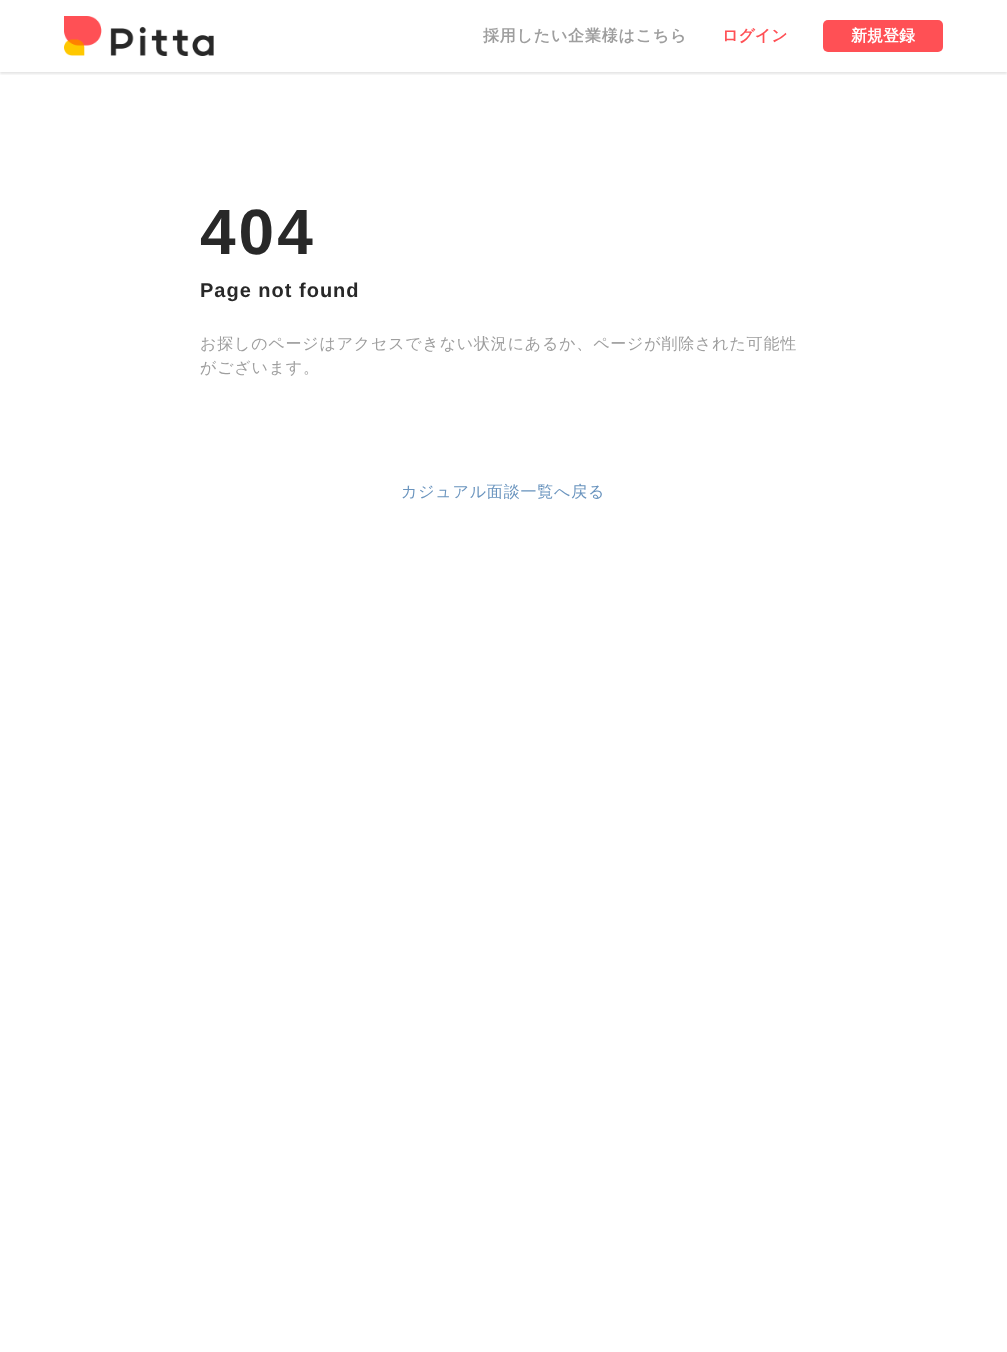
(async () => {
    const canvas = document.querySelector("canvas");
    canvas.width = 1007;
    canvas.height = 1352;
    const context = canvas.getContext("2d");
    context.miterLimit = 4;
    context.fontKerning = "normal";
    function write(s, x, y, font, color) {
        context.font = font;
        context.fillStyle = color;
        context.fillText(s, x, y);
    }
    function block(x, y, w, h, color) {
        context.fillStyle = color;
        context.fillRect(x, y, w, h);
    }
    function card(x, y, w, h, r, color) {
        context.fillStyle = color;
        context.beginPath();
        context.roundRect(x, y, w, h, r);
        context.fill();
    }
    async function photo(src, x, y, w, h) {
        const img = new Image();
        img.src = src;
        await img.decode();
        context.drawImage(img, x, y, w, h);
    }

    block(0, 0, 1007, 1352, "rgb(255, 255, 255)");
    context.save();
    context.beginPath();
    context.rect(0, 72, 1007, 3);
    context.clip();
    context.fillStyle = "rgba(0, 0, 0, 0.1)";
    context.filter = "blur(1px)";
    context.beginPath();
    context.rect(0, 2, 1007, 72);
    context.fill();
    context.filter = "none";
    context.restore();
    await photo("media/1.png", 64, 16, 150, 40);
    context.letterSpacing = "0.8px";
    write("採用したい企業様はこちら", 483, 41, "bold 16px WenQuanYi Zen Hei", "rgb(158, 158, 158)");
    context.letterSpacing = "0px";
    write("ログイン", 722, 41, "bold 16px WenQuanYi Zen Hei", "rgb(255, 80, 85)");
    card(823, 20, 120, 32, 5, "rgb(255, 80, 85)");
    write("新規登録", 851, 41, "bold 16px WenQuanYi Zen Hei", "rgb(255, 255, 255)");
    context.letterSpacing = "3px";
    write("404", 200, 254, "bold 64px Liberation Sans", "rgb(40, 40, 40)");
    context.letterSpacing = "1px";
    write("Page not found", 200, 297, "bold 20px Liberation Sans", "rgb(40, 40, 40)");
    context.letterSpacing = "0.8px";
    write("お探しのページはアクセスできない状況にあるか、ページが削除された可能性", 200, 349, "500 16px WenQuanYi Zen Hei", "rgb(158, 158, 158)");
    write("がございます。", 200, 373, "500 16px WenQuanYi Zen Hei", "rgb(158, 158, 158)");
    write("カジュアル面談一覧へ戻る", 401, 497, "500 16px WenQuanYi Zen Hei", "rgb(106, 148, 190)");
})();
